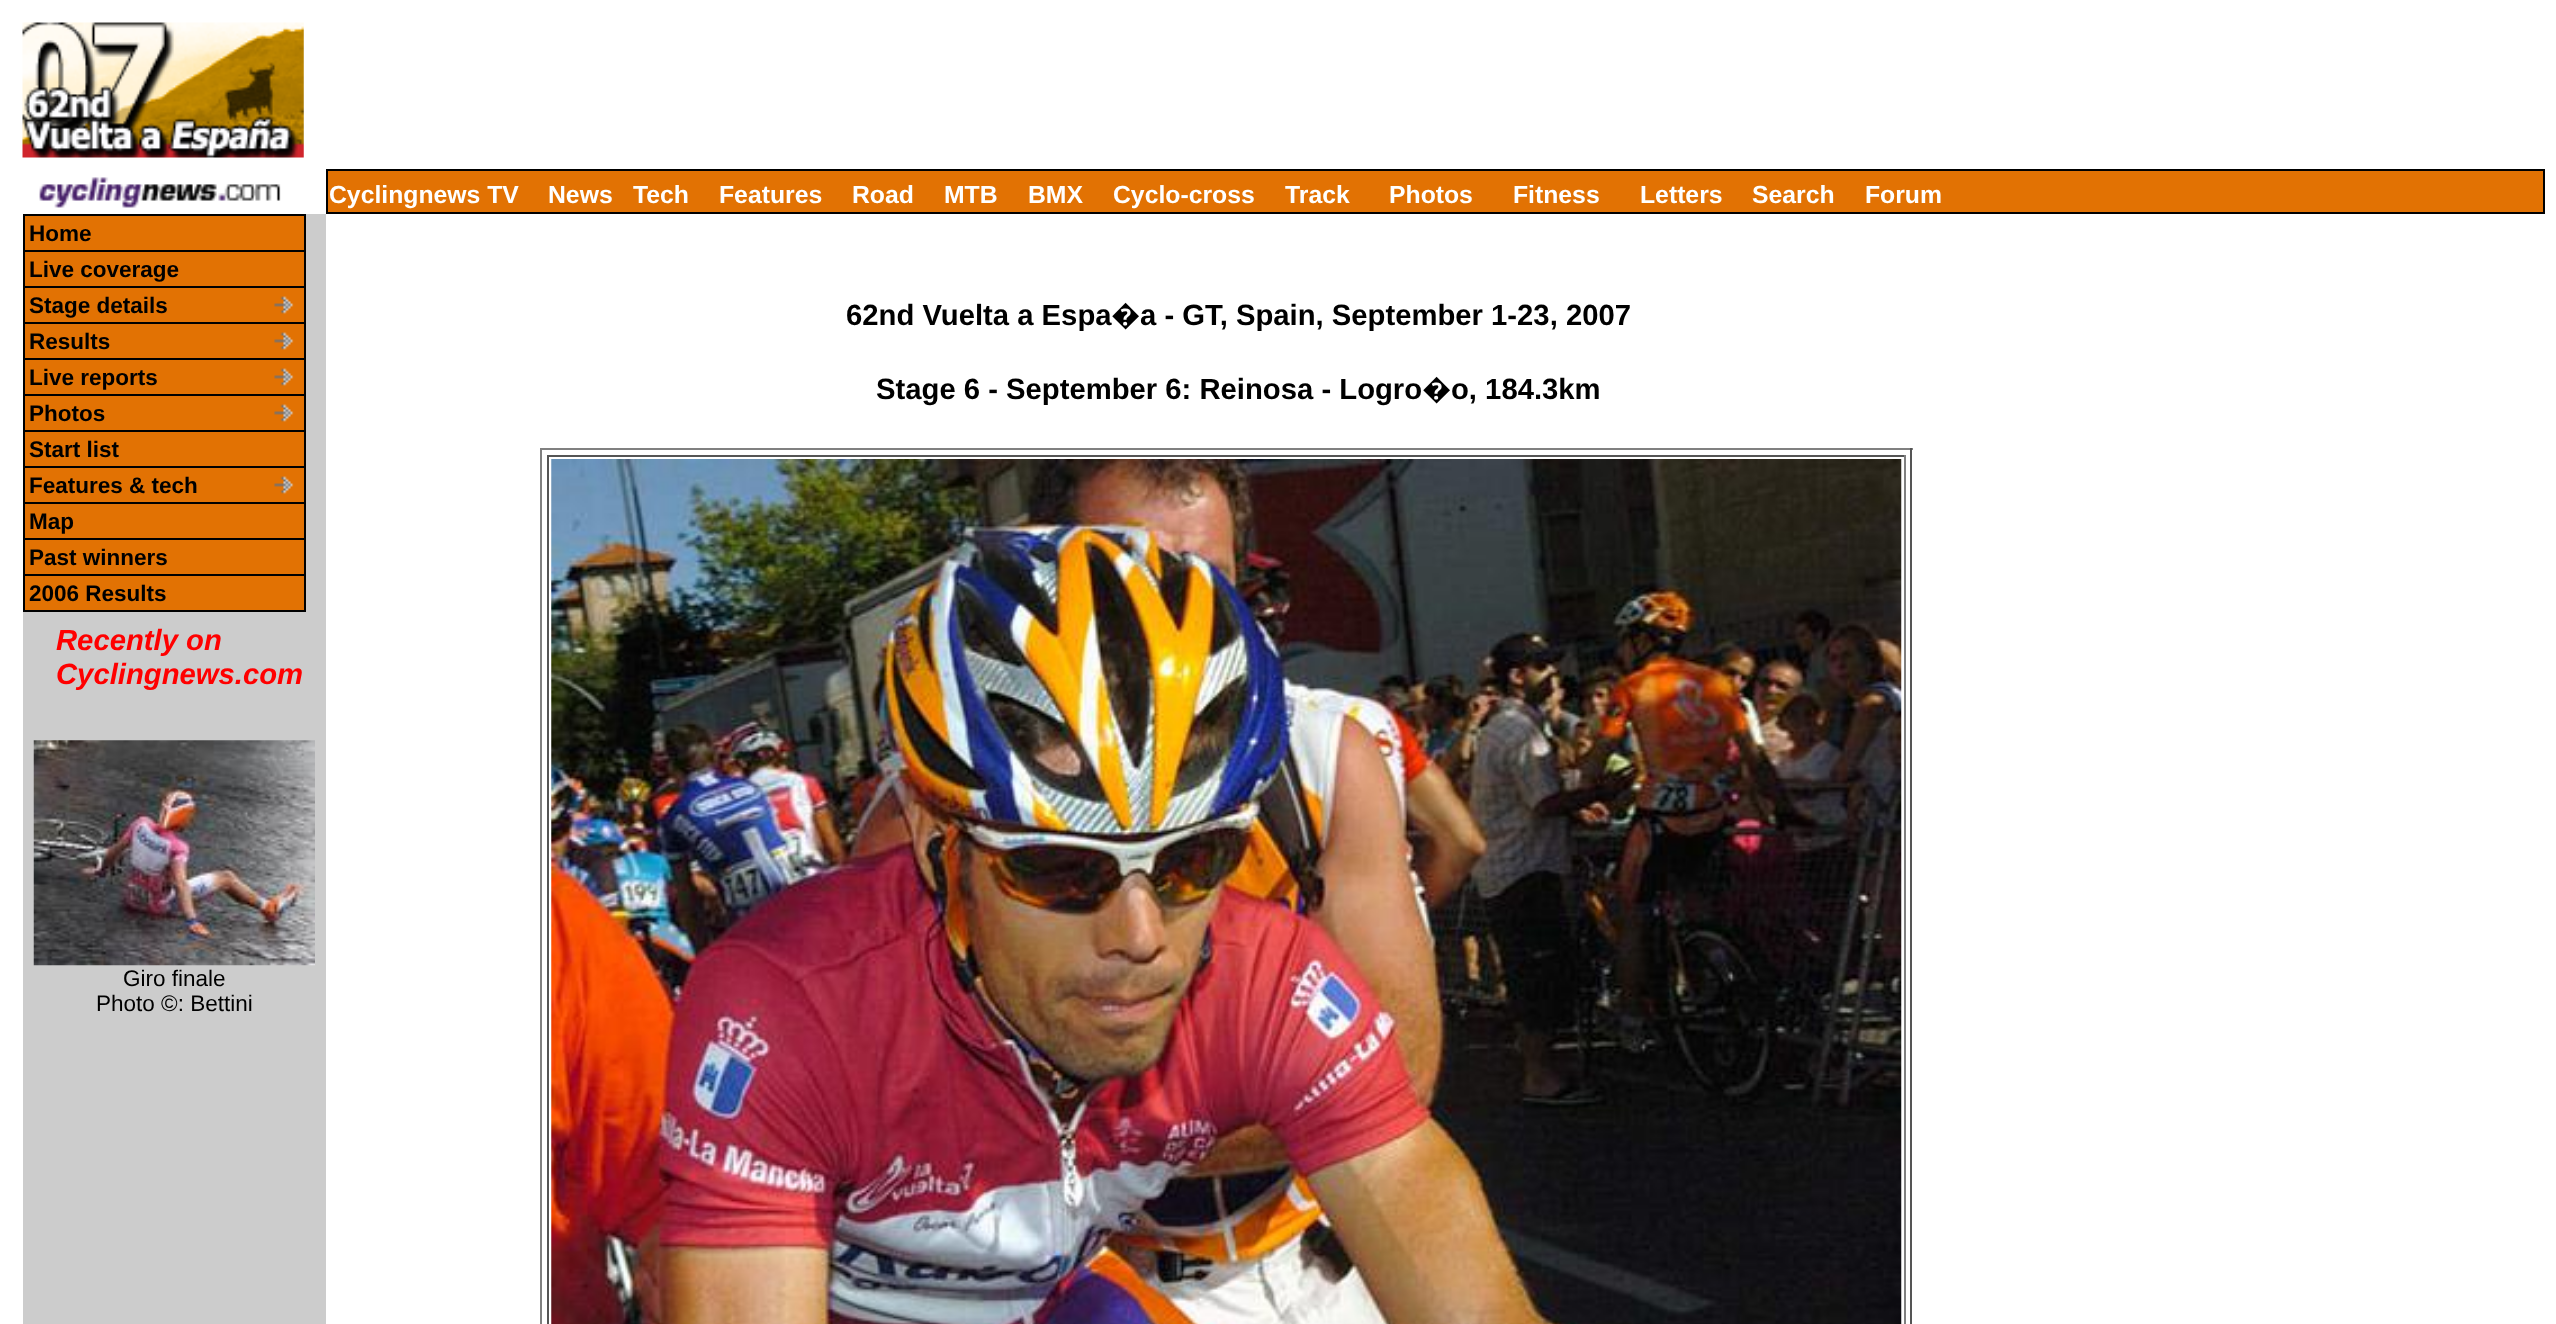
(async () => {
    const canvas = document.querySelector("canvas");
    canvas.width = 2556;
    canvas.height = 1324;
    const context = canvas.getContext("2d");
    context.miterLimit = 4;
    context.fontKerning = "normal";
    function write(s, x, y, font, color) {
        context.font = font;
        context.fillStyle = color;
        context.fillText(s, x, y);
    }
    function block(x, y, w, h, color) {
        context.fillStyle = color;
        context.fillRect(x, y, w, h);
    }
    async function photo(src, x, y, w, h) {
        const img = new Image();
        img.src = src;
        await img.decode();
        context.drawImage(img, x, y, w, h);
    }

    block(0, 0, 2556, 1324, "rgb(255, 255, 255)");
    await photo("media/1.png", 22, 22, 282, 136);
    await photo("media/2.png", 39, 177, 242, 31);
    context.fillStyle = "rgb(226, 114, 3)";
    context.beginPath();
    context.rect(327, 170, 2217, 43);
    context.fill();
    context.strokeStyle = "rgb(0, 0, 0)";
    context.lineWidth = 2;
    context.stroke();
    write("Cyclingnews TV", 329, 203, "bold 24.75px Liberation Sans", "rgb(255, 255, 255)");
    write("News", 548, 203, "bold 24.75px Liberation Sans", "rgb(255, 255, 255)");
    write("Tech", 633, 203, "bold 24.75px Liberation Sans", "rgb(255, 255, 255)");
    write("Features", 719, 203, "bold 24.75px Liberation Sans", "rgb(255, 255, 255)");
    write("Road", 852, 203, "bold 24.75px Liberation Sans", "rgb(255, 255, 255)");
    write("MTB", 944, 203, "bold 24.75px Liberation Sans", "rgb(255, 255, 255)");
    write("BMX", 1028, 203, "bold 24.75px Liberation Sans", "rgb(255, 255, 255)");
    write("Cyclo-cross", 1113, 203, "bold 24.75px Liberation Sans", "rgb(255, 255, 255)");
    write("Track", 1285, 203, "bold 24.75px Liberation Sans", "rgb(255, 255, 255)");
    write("Photos", 1389, 203, "bold 24.75px Liberation Sans", "rgb(255, 255, 255)");
    write("Fitness", 1513, 203, "bold 24.75px Liberation Sans", "rgb(255, 255, 255)");
    write("Letters", 1640, 203, "bold 24.75px Liberation Sans", "rgb(255, 255, 255)");
    write("Search", 1752, 203, "bold 24.75px Liberation Sans", "rgb(255, 255, 255)");
    write("Forum", 1865, 203, "bold 24.75px Liberation Sans", "rgb(255, 255, 255)");
    block(23, 214, 303, 1110, "rgb(204, 204, 204)");
    block(304, 214, 2, 398, "rgb(0, 0, 0)");
    block(23, 610, 283, 2, "rgb(0, 0, 0)");
    block(25, 216, 279, 34, "rgb(226, 114, 3)");
    block(23, 214, 281, 2, "rgb(0, 0, 0)");
    block(23, 214, 2, 36, "rgb(0, 0, 0)");
    write("Home", 29, 241, "bold 22.5px Liberation Sans", "rgb(0, 0, 0)");
    block(25, 252, 279, 34, "rgb(226, 114, 3)");
    block(23, 250, 281, 2, "rgb(0, 0, 0)");
    block(23, 250, 2, 36, "rgb(0, 0, 0)");
    write("Live coverage", 29, 277, "bold 22.5px Liberation Sans", "rgb(0, 0, 0)");
    block(25, 288, 279, 34, "rgb(226, 114, 3)");
    await photo("media/3.png", 274, 296, 20, 18);
    block(23, 286, 281, 2, "rgb(0, 0, 0)");
    block(23, 286, 2, 36, "rgb(0, 0, 0)");
    write("Stage details", 29, 313, "bold 22.5px Liberation Sans", "rgb(0, 0, 0)");
    block(25, 324, 279, 34, "rgb(226, 114, 3)");
    await photo("media/3.png", 274, 332, 20, 18);
    block(23, 322, 281, 2, "rgb(0, 0, 0)");
    block(23, 322, 2, 36, "rgb(0, 0, 0)");
    write("Results", 29, 349, "bold 22.5px Liberation Sans", "rgb(0, 0, 0)");
    block(25, 360, 279, 34, "rgb(226, 114, 3)");
    await photo("media/3.png", 274, 368, 20, 18);
    block(23, 358, 281, 2, "rgb(0, 0, 0)");
    block(23, 358, 2, 36, "rgb(0, 0, 0)");
    write("Live reports", 29, 385, "bold 22.5px Liberation Sans", "rgb(0, 0, 0)");
    block(25, 396, 279, 34, "rgb(226, 114, 3)");
    await photo("media/3.png", 274, 404, 20, 18);
    block(23, 394, 281, 2, "rgb(0, 0, 0)");
    block(23, 394, 2, 36, "rgb(0, 0, 0)");
    write("Photos", 29, 421, "bold 22.5px Liberation Sans", "rgb(0, 0, 0)");
    block(25, 432, 279, 34, "rgb(226, 114, 3)");
    block(23, 430, 281, 2, "rgb(0, 0, 0)");
    block(23, 430, 2, 36, "rgb(0, 0, 0)");
    write("Start list", 29, 457, "bold 22.5px Liberation Sans", "rgb(0, 0, 0)");
    block(25, 468, 279, 34, "rgb(226, 114, 3)");
    await photo("media/3.png", 274, 476, 20, 18);
    block(23, 466, 281, 2, "rgb(0, 0, 0)");
    block(23, 466, 2, 36, "rgb(0, 0, 0)");
    write("Features & tech", 29, 493, "bold 22.5px Liberation Sans", "rgb(0, 0, 0)");
    block(25, 504, 279, 34, "rgb(226, 114, 3)");
    block(23, 502, 281, 2, "rgb(0, 0, 0)");
    block(23, 502, 2, 36, "rgb(0, 0, 0)");
    write("Map", 29, 529, "bold 22.5px Liberation Sans", "rgb(0, 0, 0)");
    block(25, 540, 279, 34, "rgb(226, 114, 3)");
    block(23, 538, 281, 2, "rgb(0, 0, 0)");
    block(23, 538, 2, 36, "rgb(0, 0, 0)");
    write("Past winners", 29, 565, "bold 22.5px Liberation Sans", "rgb(0, 0, 0)");
    block(25, 576, 279, 34, "rgb(226, 114, 3)");
    block(23, 574, 281, 2, "rgb(0, 0, 0)");
    block(23, 574, 2, 36, "rgb(0, 0, 0)");
    write("2006 Results", 29, 601, "bold 22.5px Liberation Sans", "rgb(0, 0, 0)");
    write("Recently on", 56, 650, "italic bold 29.25px Liberation Sans", "rgb(255, 0, 0)");
    write("Cyclingnews.com", 56, 684, "italic bold 29.25px Liberation Sans", "rgb(255, 0, 0)");
    await photo("media/4.png", 33, 740, 282, 226);
    write("Giro finale", 123, 986, "22.5px Liberation Sans", "rgb(0, 0, 0)");
    write("Photo ©: Bettini", 96, 1011, "22.5px Liberation Sans", "rgb(0, 0, 0)");
    write("62nd Vuelta a Espa", 846, 325, "bold 29.25px Liberation Sans", "rgb(0, 0, 0)");
    write("�", 1111, 325, "bold 29.25px Noto Sans", "rgb(0, 0, 0)");
    write("a - GT, Spain, September 1-23, 2007", 1140, 325, "bold 29.25px Liberation Sans", "rgb(0, 0, 0)");
    write("Stage 6 - September 6: Reinosa - Logro", 876, 399, "bold 29.25px Liberation Sans", "rgb(0, 0, 0)");
    write("�", 1422, 399, "bold 29.25px Noto Sans", "rgb(0, 0, 0)");
    write("o, 184.3km", 1451, 399, "bold 29.25px Liberation Sans", "rgb(0, 0, 0)");
    block(540, 448, 1373, 2, "rgb(128, 128, 128)");
    block(1910, 448, 2, 876, "rgb(85, 85, 85)");
    block(540, 448, 2, 876, "rgb(128, 128, 128)");
    block(547, 455, 1359, 2, "rgb(85, 85, 85)");
    block(1904, 455, 2, 869, "rgb(128, 128, 128)");
    block(547, 455, 2, 869, "rgb(85, 85, 85)");
    await photo("media/5.png", 551, 459, 1351, 865);
})();
